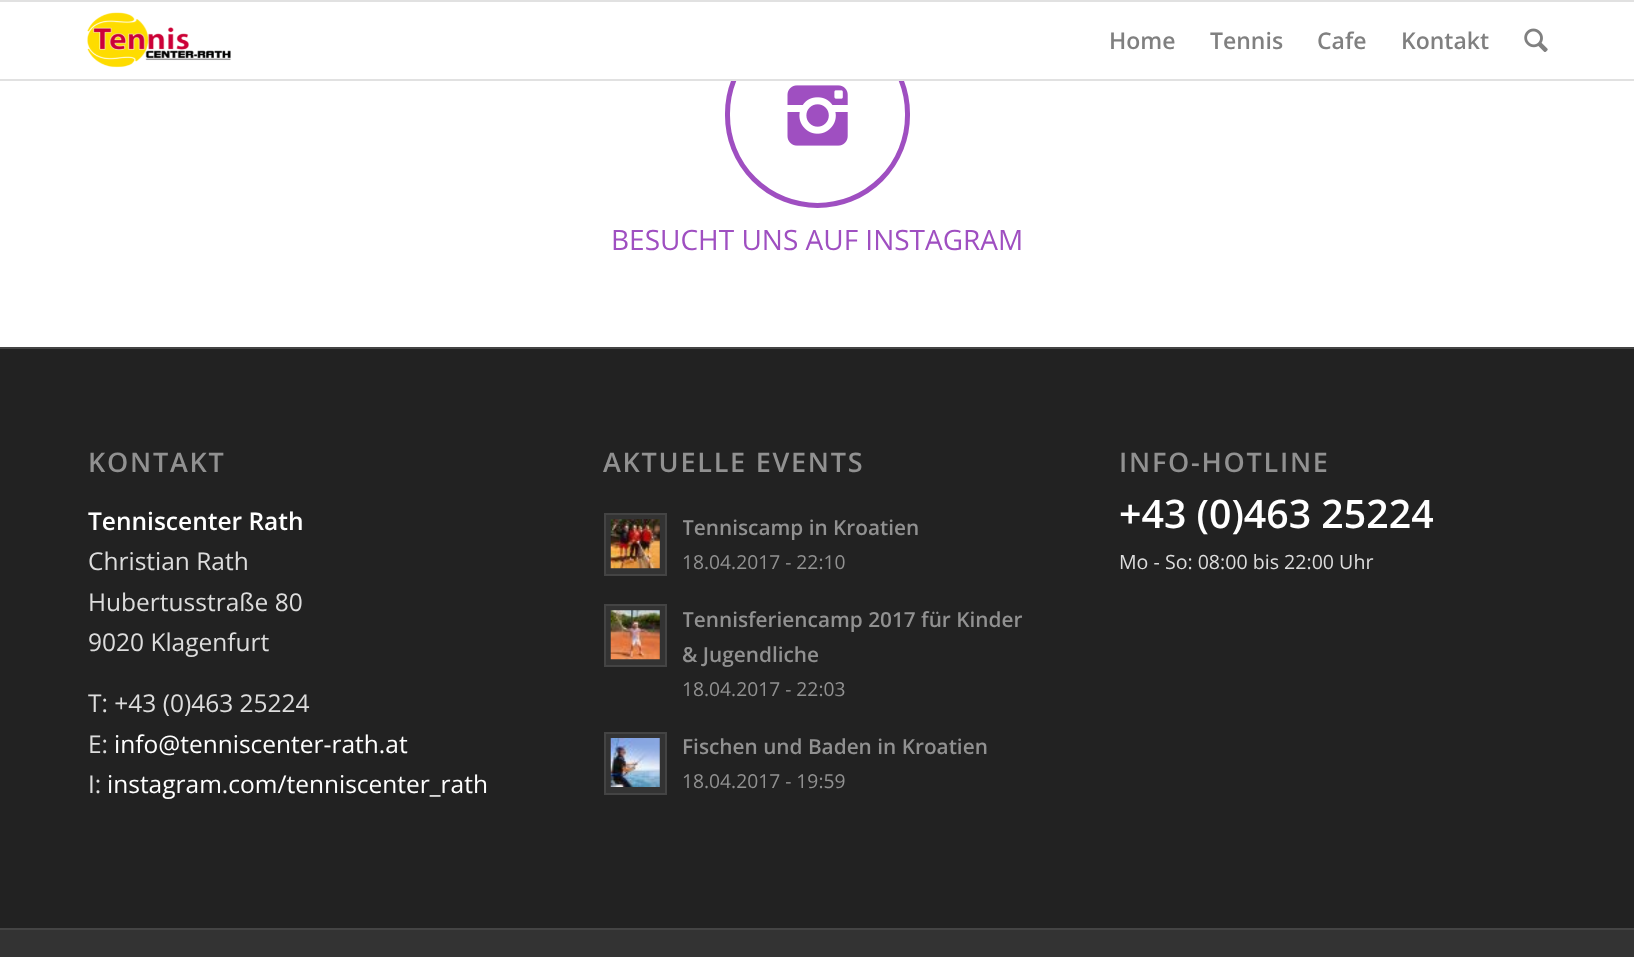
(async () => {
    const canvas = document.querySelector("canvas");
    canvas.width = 1634;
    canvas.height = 957;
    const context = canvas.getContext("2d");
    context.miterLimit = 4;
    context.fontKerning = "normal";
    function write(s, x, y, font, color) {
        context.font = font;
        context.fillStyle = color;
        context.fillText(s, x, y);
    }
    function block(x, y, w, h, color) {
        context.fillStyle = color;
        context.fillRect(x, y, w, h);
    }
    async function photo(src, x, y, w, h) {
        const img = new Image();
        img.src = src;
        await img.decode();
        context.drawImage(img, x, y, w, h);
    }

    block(0, 0, 1634, 957, "rgb(255, 255, 255)");
    context.beginPath();
    context.roundRect(727.5, 23.5, 180, 182, 90);
    context.strokeStyle = "rgb(159, 79, 193)";
    context.lineWidth = 5;
    context.stroke();
    block(731, 21, 173, 58, "rgb(255, 255, 255)");
    block(0, 0, 1634, 2, "rgb(225, 225, 225)");
    block(0, 79, 1634, 2, "rgb(225, 225, 225)");
    await photo("media/1.png", 87, 12, 144, 56);
    write("Home", 1109, 49, "600 23px Open Sans", "rgb(128, 128, 128)");
    write("Tennis", 1210, 49, "600 23px Open Sans", "rgb(128, 128, 128)");
    write("Cafe", 1317, 49, "600 23px Open Sans", "rgb(128, 128, 128)");
    write("Kontakt", 1401, 49, "600 23px Open Sans", "rgb(128, 128, 128)");
    await photo("media/2.png", 1524, 28, 24, 24);
    await photo("media/3.png", 787, 85, 61, 61);
    write("BESUCHT UNS AUF INSTAGRAM", 611, 250, "28px Open Sans", "rgb(159, 79, 193)");
    block(0, 349, 1634, 579, "rgb(34, 34, 34)");
    block(0, 347, 1634, 2, "rgb(68, 68, 68)");
    context.letterSpacing = "1.75px";
    write("KONTAKT", 88, 472, "600 27px Open Sans", "rgb(145, 145, 145)");
    context.save();
    context.beginPath();
    context.rect(88, 427, 428, 397);
    context.clip();
    context.letterSpacing = "0px";
    write("Tenniscenter Rath", 88, 530, "600 24.5px Open Sans", "rgb(255, 255, 255)");
    context.restore();
    context.letterSpacing = "0px";
    write("Christian Rath", 88, 570, "24.5px Open Sans", "rgb(221, 221, 221)");
    write("Hubertusstraße 80", 88, 611, "24.5px Open Sans", "rgb(221, 221, 221)");
    write("9020 Klagenfurt", 88, 651, "24.5px Open Sans", "rgb(221, 221, 221)");
    context.save();
    context.beginPath();
    context.rect(88, 427, 428, 397);
    context.clip();
    write("T: +43 (0)463 25224", 88, 712, "24.5px Open Sans", "rgb(221, 221, 221)");
    context.restore();
    write("E:", 88, 753, "24.5px Open Sans", "rgb(221, 221, 221)");
    write("info@tenniscenter-rath.at", 114, 753, "24.5px Open Sans", "rgb(255, 255, 255)");
    write("I:", 88, 793, "24.5px Open Sans", "rgb(221, 221, 221)");
    write("instagram.com/tenniscenter_rath", 107, 793, "24.5px Open Sans", "rgb(255, 255, 255)");
    context.letterSpacing = "1.75px";
    write("AKTUELLE EVENTS", 603, 472, "600 27px Open Sans", "rgb(145, 145, 145)");
    context.fillStyle = "rgb(51, 51, 51)";
    context.beginPath();
    context.rect(605, 514, 61, 61);
    context.fill();
    context.strokeStyle = "rgb(68, 68, 68)";
    context.lineWidth = 2;
    context.stroke();
    await photo("media/4.png", 610, 519, 50, 50);
    context.save();
    context.beginPath();
    context.rect(683, 509, 348, 70);
    context.clip();
    context.letterSpacing = "0px";
    write("Tenniscamp in Kroatien", 682, 535, "600 20.8px Open Sans", "rgb(145, 145, 145)");
    context.restore();
    context.letterSpacing = "0px";
    write("18.04.2017 - 22:10", 682, 569, "19.25px Open Sans", "rgb(145, 145, 145)");
    context.fillStyle = "rgb(51, 51, 51)";
    context.beginPath();
    context.rect(605, 605, 61, 61);
    context.fill();
    context.stroke();
    await photo("media/5.png", 610, 610, 50, 50);
    context.save();
    context.beginPath();
    context.rect(683, 600, 348, 107);
    context.clip();
    write("Tennisferiencamp 2017 für Kinder", 682, 627, "600 20.8px Open Sans", "rgb(145, 145, 145)");
    context.restore();
    write("& Jugendliche", 682, 662, "600 20.8px Open Sans", "rgb(145, 145, 145)");
    write("18.04.2017 - 22:03", 682, 696, "19.25px Open Sans", "rgb(145, 145, 145)");
    context.fillStyle = "rgb(51, 51, 51)";
    context.beginPath();
    context.rect(605, 733, 61, 61);
    context.fill();
    context.stroke();
    await photo("media/6.png", 610, 738, 50, 49);
    write("Fischen und Baden in Kroatien", 682, 754, "600 20.8px Open Sans", "rgb(145, 145, 145)");
    write("18.04.2017 - 19:59", 682, 788, "19.25px Open Sans", "rgb(145, 145, 145)");
    context.letterSpacing = "1.75px";
    write("INFO-HOTLINE", 1119, 472, "600 27px Open Sans", "rgb(145, 145, 145)");
    context.letterSpacing = "0px";
    write("+43 (0)463 25224", 1119, 528, "600 39.25px Open Sans", "rgb(255, 255, 255)");
    write("Mo - So: 08:00 bis 22:00 Uhr", 1119, 569, "19.6px Open Sans", "rgb(221, 221, 221)");
    block(0, 930, 1634, 27, "rgb(51, 51, 51)");
    block(0, 928, 1634, 2, "rgb(68, 68, 68)");
})();
